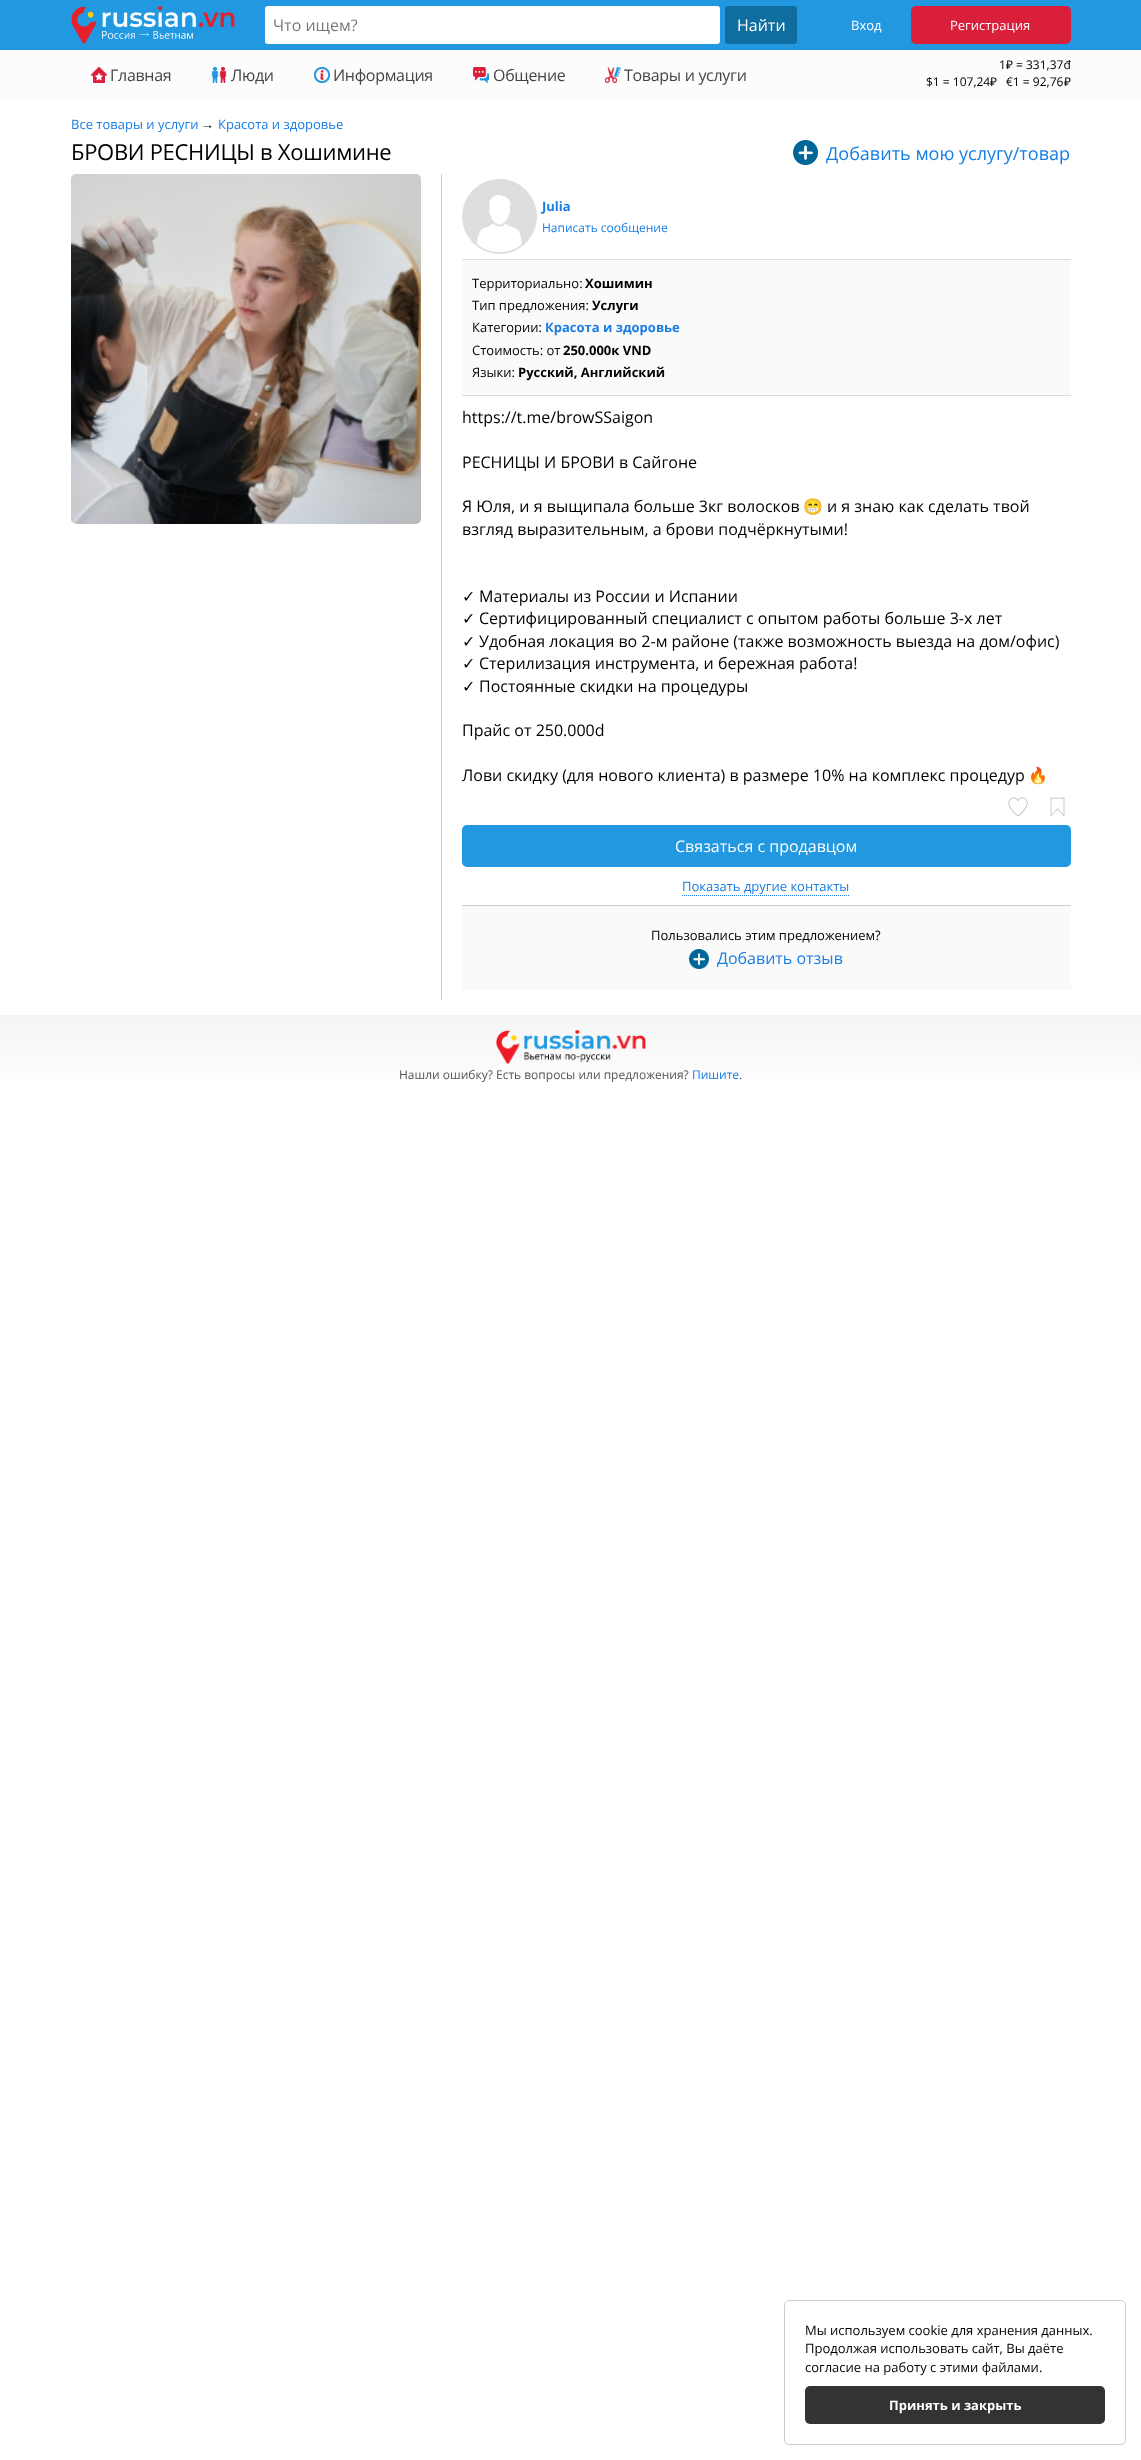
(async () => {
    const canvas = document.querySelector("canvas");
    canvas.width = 1141;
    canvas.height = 2460;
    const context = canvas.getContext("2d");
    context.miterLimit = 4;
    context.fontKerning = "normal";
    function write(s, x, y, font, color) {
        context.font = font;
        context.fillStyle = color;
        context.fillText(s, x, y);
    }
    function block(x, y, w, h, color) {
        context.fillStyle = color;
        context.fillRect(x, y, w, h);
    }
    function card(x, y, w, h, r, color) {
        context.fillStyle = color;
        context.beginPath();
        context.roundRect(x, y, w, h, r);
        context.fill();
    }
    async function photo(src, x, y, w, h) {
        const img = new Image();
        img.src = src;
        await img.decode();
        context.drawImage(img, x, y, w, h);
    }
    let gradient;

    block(0, 0, 1141, 2460, "rgb(255, 255, 255)");
    block(0, 0, 1141, 50, "rgb(34, 152, 225)");
    await photo("media/1.png", 71, 6, 164, 38);
    card(265, 6, 455, 38, 3, "rgb(255, 255, 255)");
    write("Что ищем?", 273, 31, "16px Open Sans", "rgb(121, 121, 121)");
    card(725, 6, 72, 38, 3, "rgb(15, 110, 159)");
    write("Найти", 737, 31, "16px Open Sans", "rgb(255, 255, 255)");
    write("Вход", 851, 30, "13px Open Sans", "rgb(255, 255, 255)");
    card(911, 6, 160, 38, 5, "rgb(218, 31, 59)");
    write("Регистрация", 950, 30, "13px Open Sans", "rgb(255, 255, 255)");
    block(0, 50, 1141, 50, "rgb(252, 252, 252)");
    await photo("media/2.png", 91, 67, 16, 16);
    context.letterSpacing = "-0.3px";
    write("Главная", 110, 81, "16px Open Sans", "rgb(68, 68, 68)");
    await photo("media/3.png", 211, 67, 16, 16);
    write("Люди", 231, 81, "16px Open Sans", "rgb(68, 68, 68)");
    await photo("media/4.png", 314, 67, 16, 16);
    write("Информация", 333, 81, "16px Open Sans", "rgb(68, 68, 68)");
    await photo("media/5.png", 473, 67, 16, 16);
    write("Общение", 493, 81, "16px Open Sans", "rgb(68, 68, 68)");
    await photo("media/6.png", 605, 67, 16, 16);
    write("Товары и услуги", 624, 81, "16px Open Sans", "rgb(68, 68, 68)");
    context.letterSpacing = "0px";
    write("1", 999, 69, "12px Open Sans", "rgb(0, 0, 0)");
    write("₽", 1006, 69, "12px Noto Sans", "rgb(0, 0, 0)");
    write("= 331,37đ", 1016, 69, "12px Open Sans", "rgb(0, 0, 0)");
    write("$1 = 107,24", 926, 86, "12px Open Sans", "rgb(0, 0, 0)");
    write("₽", 990, 86, "12px Noto Sans", "rgb(0, 0, 0)");
    write("€1 = 92,76", 1006, 86, "12px Open Sans", "rgb(0, 0, 0)");
    write("₽", 1064, 86, "12px Noto Sans", "rgb(0, 0, 0)");
    write("Все товары и услуги", 71, 129, "13px Open Sans", "rgb(23, 125, 229)");
    write("→", 201, 129, "13px Liberation Serif", "rgb(0, 0, 0)");
    write("Красота и здоровье", 218, 129, "13px Open Sans", "rgb(23, 125, 229)");
    context.letterSpacing = "-0.3px";
    write("БРОВИ РЕСНИЦЫ в Хошимине", 71, 160, "22px Open Sans", "rgb(0, 0, 0)");
    await photo("media/7.png", 793, 140, 25, 25);
    context.letterSpacing = "0px";
    write("Добавить мою услугу/товар", 826, 160, "18px Open Sans", "rgb(23, 125, 229)");
    await photo("media/8.png", 71, 174, 350, 350);
    block(441, 174, 1, 826, "rgb(204, 204, 204)");
    await photo("media/9.png", 462, 179, 75, 75);
    write("Julia", 542, 211, "bold 13px Open Sans", "rgb(23, 125, 229)");
    write("Написать сообщение", 542, 232, "12px Open Sans", "rgb(23, 125, 229)");
    block(462, 260, 609, 135, "rgb(250, 250, 250)");
    block(462, 259, 609, 1, "rgb(221, 221, 221)");
    block(462, 395, 609, 1, "rgb(221, 221, 221)");
    write("Территориально:", 472, 288, "13px Open Sans", "rgb(0, 0, 0)");
    write("Хошимин", 585, 288, "bold 13px Open Sans", "rgb(0, 0, 0)");
    write("Тип предложения:", 472, 310, "13px Open Sans", "rgb(0, 0, 0)");
    write("Услуги", 592, 310, "bold 13px Open Sans", "rgb(0, 0, 0)");
    write("Категории:", 472, 332, "13px Open Sans", "rgb(0, 0, 0)");
    write("Красота и здоровье", 545, 332, "bold 13px Open Sans", "rgb(23, 125, 229)");
    write("Стоимость: от", 472, 355, "13px Open Sans", "rgb(0, 0, 0)");
    write("250.000к VND", 563, 355, "bold 13px Open Sans", "rgb(0, 0, 0)");
    write("Языки:", 472, 377, "13px Open Sans", "rgb(0, 0, 0)");
    write("Русский, Английский", 518, 377, "bold 13px Open Sans", "rgb(0, 0, 0)");
    write("https://t.me/browSSaigon", 462, 423, "16px Open Sans", "rgb(0, 0, 0)");
    write("РЕСНИЦЫ И БРОВИ в Сайгоне", 462, 468, "16px Open Sans", "rgb(0, 0, 0)");
    write("Я Юля, и я выщипала больше 3кг волосков", 462, 512, "16px Open Sans", "rgb(0, 0, 0)");
    write("😁", 803, 512, "16px Noto Color Emoji", "rgb(0, 0, 0)");
    write("и я знаю как сделать твой", 827, 512, "16px Open Sans", "rgb(0, 0, 0)");
    write("взгляд выразительным, а брови подчёркнутыми!", 462, 535, "16px Open Sans", "rgb(0, 0, 0)");
    write("✓", 462, 602, "16px DejaVu Sans", "rgb(0, 0, 0)");
    write("Материалы из России и Испании", 479, 602, "16px Open Sans", "rgb(0, 0, 0)");
    write("✓", 462, 624, "16px DejaVu Sans", "rgb(0, 0, 0)");
    write("Сертифицированный специалист с опытом работы больше 3-х лет", 479, 624, "16px Open Sans", "rgb(0, 0, 0)");
    write("✓", 462, 647, "16px DejaVu Sans", "rgb(0, 0, 0)");
    write("Удобная локация во 2-м районе (также возможность выезда на дом/офис)", 479, 647, "16px Open Sans", "rgb(0, 0, 0)");
    write("✓", 462, 669, "16px DejaVu Sans", "rgb(0, 0, 0)");
    write("Стерилизация инструмента, и бережная работа!", 479, 669, "16px Open Sans", "rgb(0, 0, 0)");
    write("✓", 462, 692, "16px DejaVu Sans", "rgb(0, 0, 0)");
    write("Постоянные скидки на процедуры", 479, 692, "16px Open Sans", "rgb(0, 0, 0)");
    write("Прайс от 250.000d", 462, 736, "16px Open Sans", "rgb(0, 0, 0)");
    write("Лови скидку (для нового клиента) в размере 10% на комплекс процедур", 462, 781, "16px Open Sans", "rgb(0, 0, 0)");
    write("🔥", 1028, 781, "16px Noto Color Emoji", "rgb(0, 0, 0)");
    await photo("media/10.png", 1008, 797, 20, 20);
    await photo("media/11.png", 1050, 797, 15, 20);
    card(462, 825, 609, 42, 5, "rgb(34, 152, 225)");
    write("Связаться с продавцом", 675, 852, "16px Open Sans", "rgb(255, 255, 255)");
    write("Показать другие контакты", 682, 891, "13px Open Sans", "rgb(23, 125, 229)");
    context.beginPath();
    context.moveTo(682, 895.5);
    context.lineTo(850, 895.5);
    context.strokeStyle = "rgb(23, 125, 229)";
    context.setLineDash([1, 1]);
    context.stroke();
    block(462, 906, 609, 84, "rgb(250, 250, 250)");
    block(462, 905, 609, 1, "rgb(204, 204, 204)");
    write("Пользовались этим предложением?", 651, 940, "13px Open Sans", "rgb(0, 0, 0)");
    await photo("media/12.png", 689, 949, 20, 20);
    write("Добавить отзыв", 717, 964, "16px Open Sans", "rgb(23, 125, 229)");
    gradient = context.createLinearGradient(571, 1015, 571, 1100);
    gradient.addColorStop(0, "rgb(245, 245, 245)");
    gradient.addColorStop(1, "rgb(255, 255, 255)");
    context.fillStyle = gradient;
    context.fillRect(0, 1015, 1141, 64);
    await photo("media/13.png", 496, 1030, 150, 34);
    write("Нашли ошибку? Есть вопросы или предложения?", 399, 1079, "12px Open Sans", "rgb(85, 85, 85)");
    write("Пишите", 692, 1079, "12px Open Sans", "rgb(23, 125, 229)");
    write(".", 739, 1079, "12px Open Sans", "rgb(85, 85, 85)");
    context.beginPath();
    context.roundRect(784.5, 2300.5, 341, 144, 4.5);
    context.strokeStyle = "rgb(204, 204, 204)";
    context.setLineDash([]);
    context.stroke();
    write("Мы используем cookie для хранения данных.", 805, 2335, "13px Open Sans", "rgb(0, 0, 0)");
    write("Продолжая использовать сайт, Вы даёте", 805, 2353, "13px Open Sans", "rgb(0, 0, 0)");
    write("согласие на работу с этими файлами.", 805, 2372, "13px Open Sans", "rgb(0, 0, 0)");
    card(805, 2386, 300, 38, 5, "rgb(51, 51, 51)");
    write("Принять и закрыть", 889, 2410, "bold 13px Open Sans", "rgb(255, 255, 255)");
})();
